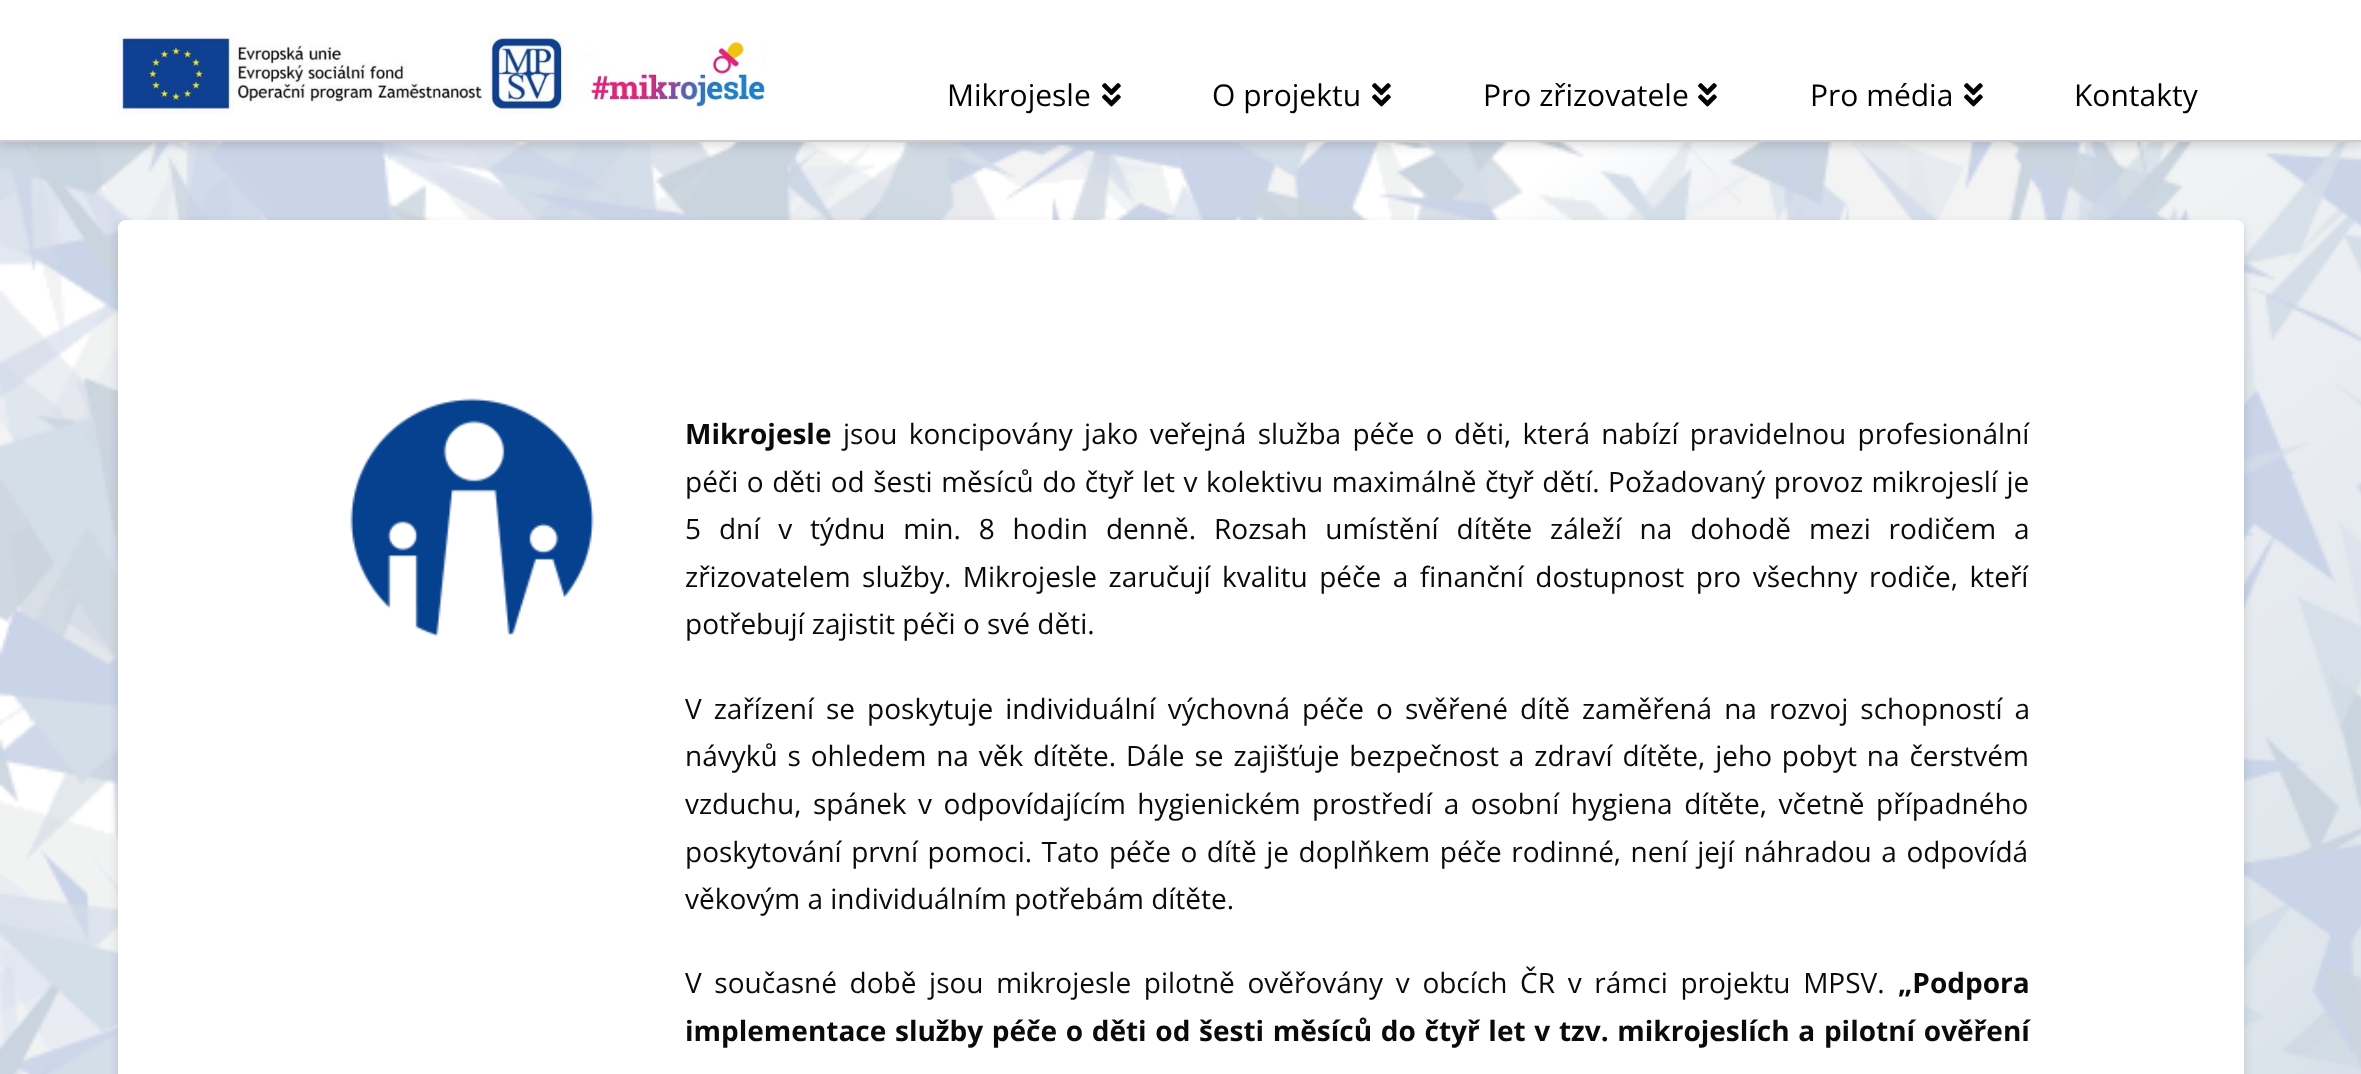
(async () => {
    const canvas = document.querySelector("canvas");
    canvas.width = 2361;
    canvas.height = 1074;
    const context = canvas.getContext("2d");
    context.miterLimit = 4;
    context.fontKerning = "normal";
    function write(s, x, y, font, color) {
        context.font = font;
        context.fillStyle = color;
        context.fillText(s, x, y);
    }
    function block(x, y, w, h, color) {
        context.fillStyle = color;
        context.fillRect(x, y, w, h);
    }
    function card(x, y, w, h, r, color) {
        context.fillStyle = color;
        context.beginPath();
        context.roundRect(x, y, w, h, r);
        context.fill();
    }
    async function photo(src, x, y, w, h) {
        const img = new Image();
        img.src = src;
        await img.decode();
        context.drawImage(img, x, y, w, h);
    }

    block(0, 0, 2361, 1074, "rgb(255, 255, 255)");
    await photo("media/4.png", 0, 142, 2361, 932);
    context.fillStyle = "rgba(0, 0, 0, 0.13)";
    context.filter = "blur(5px)";
    context.beginPath();
    context.rect(0, 4, 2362, 142);
    context.fill();
    context.filter = "none";
    block(0, 0, 2361, 140, "rgb(255, 255, 255)");
    block(0, 140, 2361, 2, "rgb(204, 204, 204)");
    await photo("media/1.png", 118, 34, 648, 80);
    write("Mikrojesle", 947, 106, "30px Open Sans", "rgb(0, 0, 0)");
    await photo("media/2.png", 1102, 83, 19, 24);
    write("O projektu", 1212, 106, "30px Open Sans", "rgb(0, 0, 0)");
    await photo("media/2.png", 1372, 83, 19, 24);
    write("Pro zřizovatele", 1483, 106, "30px Open Sans", "rgb(0, 0, 0)");
    await photo("media/2.png", 1698, 83, 19, 24);
    write("Pro média", 1810, 106, "30px Open Sans", "rgb(0, 0, 0)");
    await photo("media/2.png", 1964, 83, 19, 24);
    write("Kontakty", 2074, 106, "30px Open Sans", "rgb(0, 0, 0)");
    context.fillStyle = "rgba(0, 0, 0, 0.13)";
    context.filter = "blur(5px)";
    context.beginPath();
    context.roundRect(118, 224, 2126, 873, 8);
    context.fill();
    context.filter = "none";
    card(118, 220, 2126, 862, 8, "rgb(255, 255, 255)");
    await photo("media/3.png", 350, 398, 244, 239);
    write("Mikrojesle", 685, 444, "bold 28px Open Sans", "rgb(10, 10, 10)");
    context.wordSpacing = "4.1px";
    write("jsou koncipovány jako veřejná služba péče o děti, která nabízí pravidelnou profesionální", 843, 444, "28px Open Sans", "rgb(10, 10, 10)");
    context.wordSpacing = "1.25px";
    write("péči o děti od šesti měsíců do čtyř let v kolektivu maximálně čtyř dětí. Požadovaný provoz mikrojeslí je", 685, 492, "28px Open Sans", "rgb(10, 10, 10)");
    context.wordSpacing = "10.6px";
    write("5 dní v týdnu min. 8 hodin denně. Rozsah umístění dítěte záleží na dohodě mezi rodičem a", 685, 539, "28px Open Sans", "rgb(10, 10, 10)");
    context.wordSpacing = "4.25px";
    write("zřizovatelem služby. Mikrojesle zaručují kvalitu péče a finanční dostupnost pro všechny rodiče, kteří", 685, 587, "28px Open Sans", "rgb(10, 10, 10)");
    context.wordSpacing = "0px";
    write("potřebují zajistit péči o své děti.", 685, 634, "28px Open Sans", "rgb(10, 10, 10)");
    context.wordSpacing = "4.75px";
    write("V zařízení se poskytuje individuální výchovná péče o svěřené dítě zaměřená na rozvoj schopností a", 685, 719, "28px Open Sans", "rgb(10, 10, 10)");
    context.wordSpacing = "2.6px";
    write("návyků s ohledem na věk dítěte. Dále se zajišťuje bezpečnost a zdraví dítěte, jeho pobyt na čerstvém", 685, 766, "28px Open Sans", "rgb(10, 10, 10)");
    context.wordSpacing = "4.25px";
    write("vzduchu, spánek v odpovídajícím hygienickém prostředí a osobní hygiena dítěte, včetně případného", 685, 814, "28px Open Sans", "rgb(10, 10, 10)");
    context.wordSpacing = "2.25px";
    write("poskytování první pomoci. Tato péče o dítě je doplňkem péče rodinné, není její náhradou a odpovídá", 685, 862, "28px Open Sans", "rgb(10, 10, 10)");
    context.wordSpacing = "0px";
    write("věkovým a individuálním potřebám dítěte.", 685, 909, "28px Open Sans", "rgb(10, 10, 10)");
    context.wordSpacing = "5.4px";
    write("V současné době jsou mikrojesle pilotně ověřovány v obcích ČR v rámci projektu MPSV.", 685, 993, "28px Open Sans", "rgb(10, 10, 10)");
    context.wordSpacing = "0px";
    write("„Podpora", 1898, 993, "bold 28px Open Sans", "rgb(10, 10, 10)");
    context.wordSpacing = "1.4px";
    write("implementace služby péče o děti od šesti měsíců do čtyř let v tzv. mikrojeslích a pilotní ověření", 685, 1041, "bold 28px Open Sans", "rgb(10, 10, 10)");
})();
